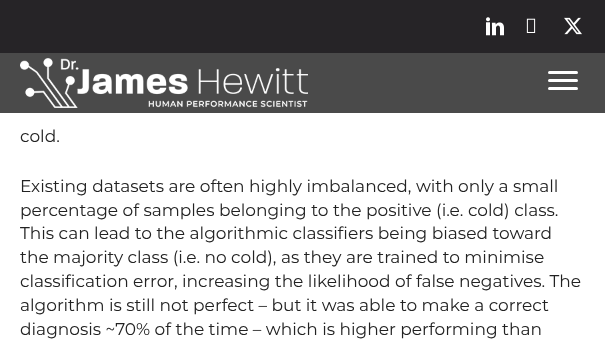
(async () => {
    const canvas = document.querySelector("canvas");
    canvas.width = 605;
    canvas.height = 345;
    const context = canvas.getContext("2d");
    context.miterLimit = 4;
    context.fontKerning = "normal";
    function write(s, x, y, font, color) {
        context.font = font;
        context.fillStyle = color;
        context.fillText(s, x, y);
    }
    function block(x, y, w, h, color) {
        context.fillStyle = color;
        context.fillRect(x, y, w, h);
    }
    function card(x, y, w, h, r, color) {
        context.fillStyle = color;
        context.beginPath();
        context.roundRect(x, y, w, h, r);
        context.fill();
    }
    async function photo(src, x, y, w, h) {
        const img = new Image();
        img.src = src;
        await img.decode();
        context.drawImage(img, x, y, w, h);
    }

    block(0, 0, 605, 345, "rgb(255, 255, 255)");
    block(0, 0, 605, 53, "rgb(38, 36, 39)");
    await photo("media/1.png", 486, 17, 18, 19);
    await photo("media/2.png", 526, 18, 10, 15);
    await photo("media/3.png", 564, 17, 18, 18);
    block(0, 53, 605, 60, "rgba(0, 0, 0, 0.71)");
    await photo("media/4.png", 20, 58, 288, 50);
    card(548, 79, 30, 3, 1.5, "rgb(255, 255, 255)");
    card(548, 71, 30, 3, 1.5, "rgb(255, 255, 255)");
    card(548, 87, 30, 3, 1.5, "rgb(255, 255, 255)");
    write("cold.", 20, 142, "17px Montserrat", "rgb(34, 34, 34)");
    write("Existing datasets are often highly imbalanced, with only a small", 20, 192, "17px Montserrat", "rgb(34, 34, 34)");
    write("percentage of samples belonging to the positive (i.e. cold) class.", 20, 216, "17px Montserrat", "rgb(34, 34, 34)");
    write("This can lead to the algorithmic classifiers being biased toward", 20, 239, "17px Montserrat", "rgb(34, 34, 34)");
    write("the majority class (i.e. no cold), as they are trained to minimise", 20, 263, "17px Montserrat", "rgb(34, 34, 34)");
    write("classification error, increasing the likelihood of false negatives. The", 20, 287, "17px Montserrat", "rgb(34, 34, 34)");
    write("algorithm is still not perfect – but it was able to make a correct", 20, 311, "17px Montserrat", "rgb(34, 34, 34)");
    write("diagnosis ~70% of the time – which is higher performing than", 20, 335, "17px Montserrat", "rgb(34, 34, 34)");
})();
